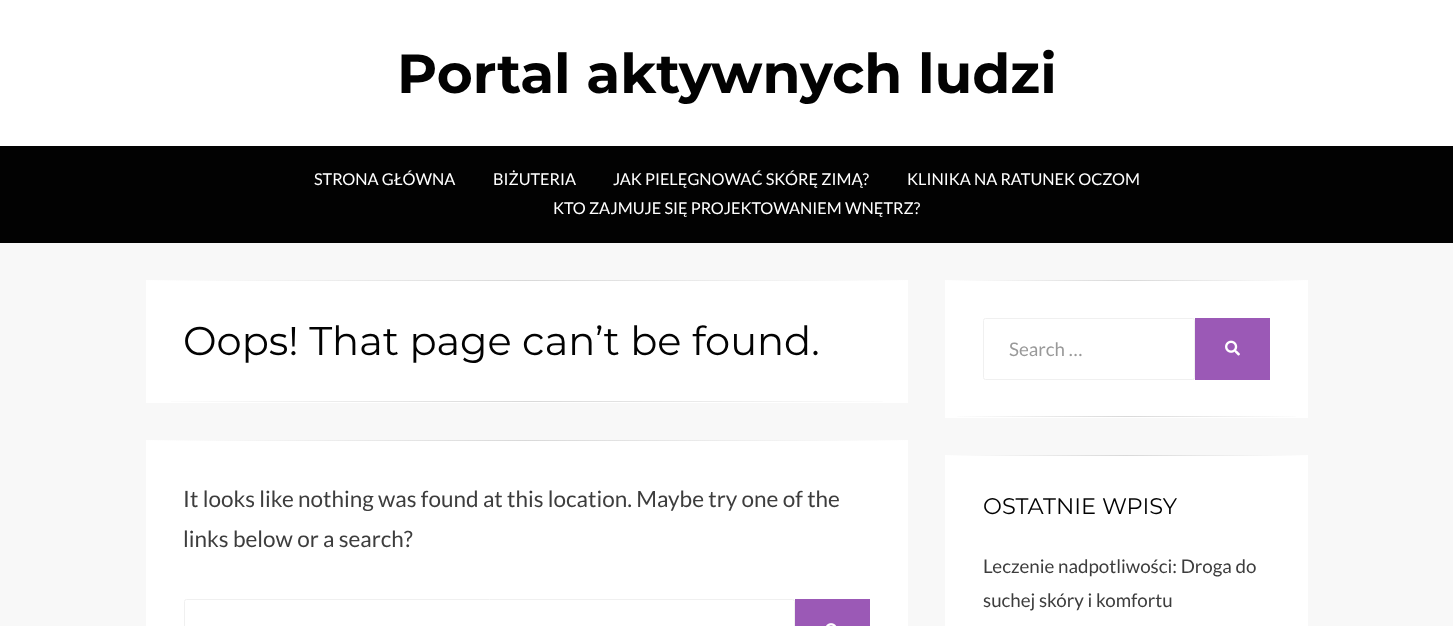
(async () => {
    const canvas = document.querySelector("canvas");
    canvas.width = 1453;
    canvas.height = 626;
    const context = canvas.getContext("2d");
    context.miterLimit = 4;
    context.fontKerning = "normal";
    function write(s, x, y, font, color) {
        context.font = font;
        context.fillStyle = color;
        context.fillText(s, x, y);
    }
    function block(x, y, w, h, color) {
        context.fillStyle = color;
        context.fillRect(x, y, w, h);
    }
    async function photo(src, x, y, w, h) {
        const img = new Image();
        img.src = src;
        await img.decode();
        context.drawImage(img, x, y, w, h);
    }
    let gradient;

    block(0, 0, 1453, 626, "rgb(248, 248, 248)");
    block(0, 0, 1453, 146, "rgb(255, 255, 255)");
    write("Portal aktywnych ludzi", 397, 93, "bold 55px Montserrat", "rgb(2, 2, 2)");
    block(0, 146, 1453, 97, "rgb(2, 2, 2)");
    write("STRONA GŁÓWNA", 314, 185, "16.25px Lato", "rgb(255, 255, 255)");
    write("BIŻUTERIA", 493, 185, "16.25px Lato", "rgb(255, 255, 255)");
    write("JAK PIELĘGNOWAĆ SKÓRĘ ZIMĄ?", 613, 185, "16.25px Lato", "rgb(255, 255, 255)");
    write("KLINIKA NA RATUNEK OCZOM", 907, 185, "16.25px Lato", "rgb(255, 255, 255)");
    write("KTO ZAJMUJE SIĘ PROJEKTOWANIEM WNĘTRZ?", 553, 214, "16.25px Lato", "rgb(255, 255, 255)");
    block(146, 281, 762, 122, "rgb(255, 255, 255)");
    gradient = context.createLinearGradient(146, 281, 908, 281);
    gradient.addColorStop(0, "rgb(255, 255, 255)");
    gradient.addColorStop(0.5, "rgb(217, 217, 217)");
    gradient.addColorStop(1, "rgb(255, 255, 255)");
    context.fillStyle = gradient;
    context.fillRect(146, 280, 762, 1);
    write("Oops! That page can’t be found.", 183, 355, "40px Montserrat", "rgb(2, 2, 2)");
    gradient = context.createLinearGradient(146, 402, 908, 402);
    gradient.addColorStop(0, "rgb(255, 255, 255)");
    gradient.addColorStop(0.5, "rgb(217, 217, 217)");
    gradient.addColorStop(1, "rgb(255, 255, 255)");
    context.fillStyle = gradient;
    context.fillRect(171, 401, 712, 1);
    block(146, 441, 762, 185, "rgb(255, 255, 255)");
    gradient = context.createLinearGradient(146, 441, 908, 441);
    gradient.addColorStop(0, "rgb(255, 255, 255)");
    gradient.addColorStop(0.5, "rgb(217, 217, 217)");
    gradient.addColorStop(1, "rgb(255, 255, 255)");
    context.fillStyle = gradient;
    context.fillRect(146, 440, 762, 1);
    write("It looks like nothing was found at this location. Maybe try one of the", 183, 507, "22.5px Lato", "rgb(61, 61, 61)");
    write("links below or a search?", 183, 547, "22.5px Lato", "rgb(61, 61, 61)");
    context.beginPath();
    context.roundRect(184.5, 599.5, 610, 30, 2);
    context.strokeStyle = "rgb(240, 240, 240)";
    context.stroke();
    block(795, 599, 75, 27, "rgb(155, 89, 182)");
    await photo("media/1.png", 826, 623, 11, 3);
    block(945, 281, 363, 137, "rgb(255, 255, 255)");
    gradient = context.createLinearGradient(945, 281, 1308, 281);
    gradient.addColorStop(0, "rgb(255, 255, 255)");
    gradient.addColorStop(0.5, "rgb(217, 217, 217)");
    gradient.addColorStop(1, "rgb(255, 255, 255)");
    context.fillStyle = gradient;
    context.fillRect(945, 280, 363, 1);
    context.beginPath();
    context.roundRect(983.5, 318.5, 211, 61, 2);
    context.stroke();
    write("Search …", 1009, 356, "18.75px Lato", "rgb(153, 153, 153)");
    block(1195, 318, 75, 62, "rgb(155, 89, 182)");
    await photo("media/2.png", 1225, 340, 15, 16);
    gradient = context.createLinearGradient(945, 417, 1308, 417);
    gradient.addColorStop(0, "rgb(255, 255, 255)");
    gradient.addColorStop(0.5, "rgb(217, 217, 217)");
    gradient.addColorStop(1, "rgb(255, 255, 255)");
    context.fillStyle = gradient;
    context.fillRect(957, 416, 339, 1);
    block(945, 456, 363, 170, "rgb(255, 255, 255)");
    gradient = context.createLinearGradient(945, 456, 1308, 456);
    gradient.addColorStop(0, "rgb(255, 255, 255)");
    gradient.addColorStop(0.5, "rgb(217, 217, 217)");
    gradient.addColorStop(1, "rgb(255, 255, 255)");
    context.fillStyle = gradient;
    context.fillRect(945, 455, 363, 1);
    write("OSTATNIE WPISY", 983, 514, "22.5px Montserrat", "rgb(2, 2, 2)");
    write("Leczenie nadpotliwości: Droga do", 983, 573, "18.75px Lato", "rgb(61, 61, 61)");
    write("suchej skóry i komfortu", 983, 607, "18.75px Lato", "rgb(61, 61, 61)");
})();
